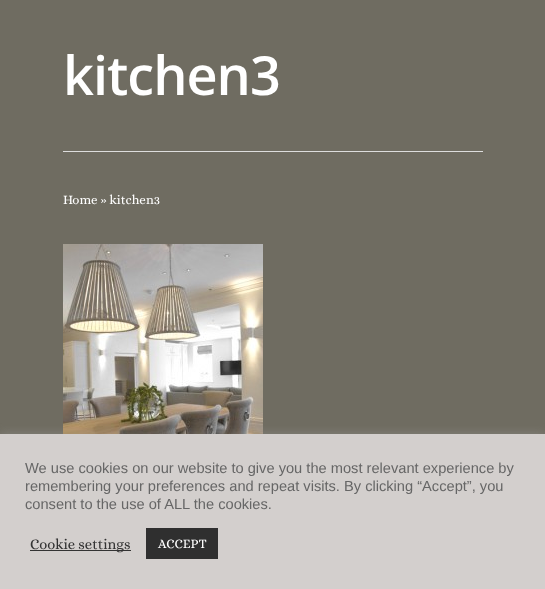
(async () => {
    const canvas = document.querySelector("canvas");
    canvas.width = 545;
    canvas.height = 589;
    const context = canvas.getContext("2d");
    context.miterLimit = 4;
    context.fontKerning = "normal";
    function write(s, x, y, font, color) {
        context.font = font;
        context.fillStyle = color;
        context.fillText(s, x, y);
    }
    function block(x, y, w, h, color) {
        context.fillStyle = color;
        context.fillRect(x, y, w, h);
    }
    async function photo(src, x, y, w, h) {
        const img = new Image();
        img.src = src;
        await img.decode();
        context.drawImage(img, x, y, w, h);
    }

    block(0, 0, 545, 589, "rgb(111, 108, 97)");
    block(63, 151, 420, 1, "rgb(221, 221, 221)");
    context.letterSpacing = "-1px";
    write("kitchen3", 63, 95, "600 54px Open Sans", "rgb(255, 255, 255)");
    context.letterSpacing = "0px";
    write("Home » kitchen3", 63, 204, "13px Alice", "rgb(255, 255, 255)");
    await photo("media/1.png", 63, 244, 200, 190);
    context.fillStyle = "rgba(172, 171, 171, 0.3)";
    context.filter = "blur(5px)";
    context.beginPath();
    context.rect(0, 433, 545, 155);
    context.fill();
    context.filter = "none";
    block(0, 434, 545, 155, "rgb(211, 207, 205)");
    write("We use cookies on our website to give you the most relevant experience by", 25, 473, "14.65px Liberation Sans", "rgb(102, 102, 102)");
    write("remembering your preferences and repeat visits. By clicking “Accept”, you", 25, 491, "14.65px Liberation Sans", "rgb(102, 102, 102)");
    write("consent to the use of ALL the cookies.", 25, 509, "14.65px Liberation Sans", "rgb(102, 102, 102)");
    block(30, 550, 101, 1, "rgb(51, 51, 51)");
    write("Cookie settings", 30, 549, "14.65px Alice", "rgb(51, 51, 51)");
    block(146, 528, 72, 31, "rgb(47, 47, 47)");
    write("ACCEPT", 158, 548, "13px Alice", "rgb(255, 255, 255)");
})();
